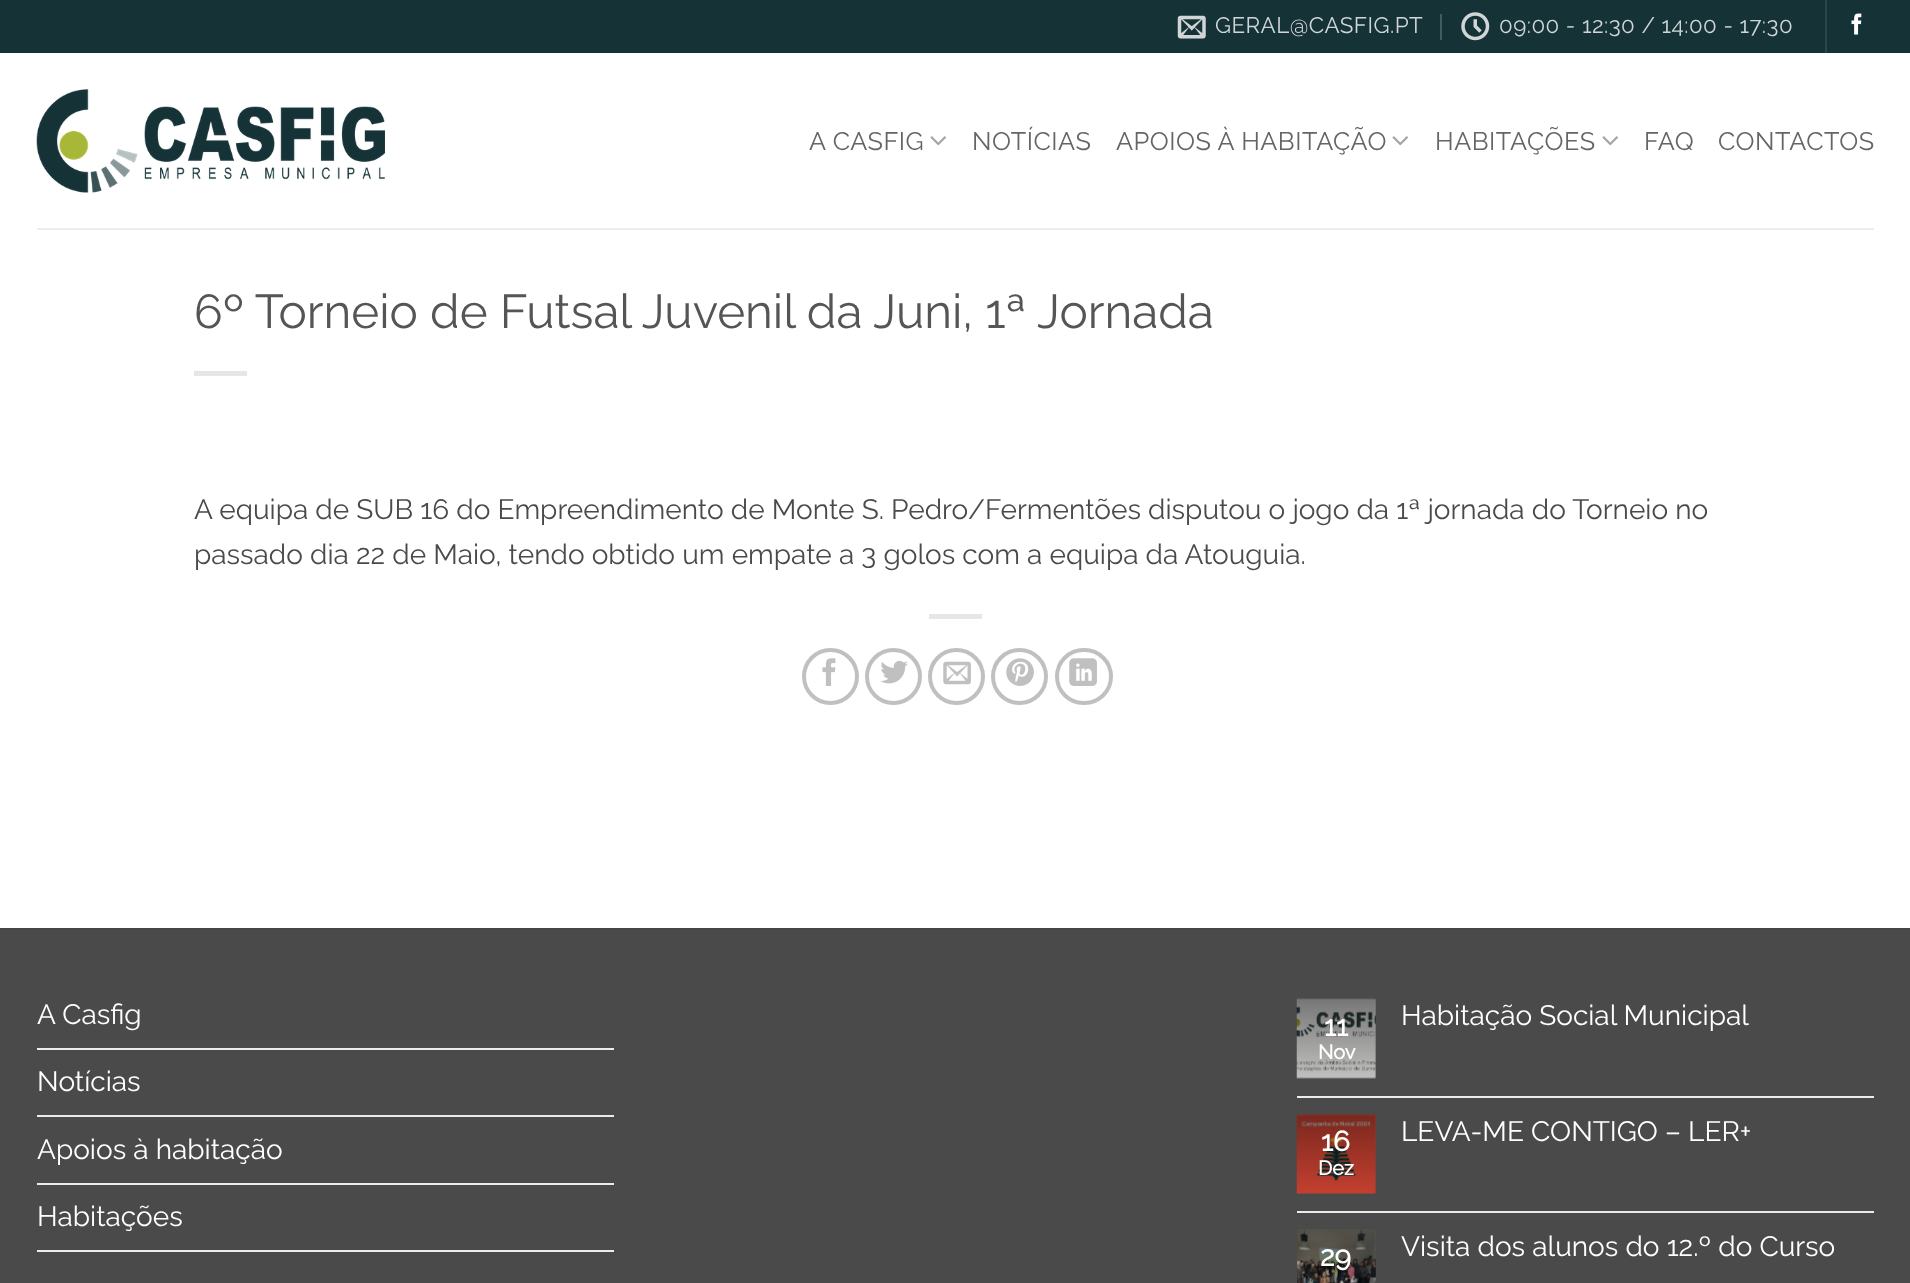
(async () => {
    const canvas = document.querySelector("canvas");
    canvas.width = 1910;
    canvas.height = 1283;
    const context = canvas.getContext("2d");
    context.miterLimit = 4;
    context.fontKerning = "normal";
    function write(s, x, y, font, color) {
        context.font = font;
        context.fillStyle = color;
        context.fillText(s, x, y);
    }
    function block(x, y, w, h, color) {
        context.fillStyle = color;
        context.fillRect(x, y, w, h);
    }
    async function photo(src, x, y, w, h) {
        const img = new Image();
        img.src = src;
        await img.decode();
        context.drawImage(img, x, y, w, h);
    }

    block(0, 0, 1910, 1283, "rgb(255, 255, 255)");
    block(0, 0, 1910, 53, "rgb(21, 50, 54)");
    await photo("media/1.png", 1177, 15, 29, 24);
    context.letterSpacing = "0.45px";
    write("GERAL@CASFIG.PT", 1215, 33, "100 22.4px Raleway", "rgb(208, 214, 215)");
    block(1440, 14, 2, 26, "rgb(68, 91, 94)");
    await photo("media/2.png", 1461, 12, 29, 29);
    write("09:00 - 12:30 / 14:00 - 17:30", 1499, 33, "100 22.4px Raleway", "rgb(208, 214, 215)");
    block(1825, 0, 2, 53, "rgb(44, 71, 74)");
    await photo("media/3.png", 1851, 13, 11, 22);
    await photo("media/4.png", 36, 89, 349, 104);
    context.letterSpacing = "0.5px";
    write("A CASFIG", 809, 150, "100 25.25px Raleway", "rgb(101, 101, 101)");
    await photo("media/5.png", 930, 136, 16, 10);
    write("NOTÍCIAS", 972, 150, "100 25.25px Raleway", "rgb(101, 101, 101)");
    write("APOIOS À HABITAÇÃO", 1116, 150, "100 25.25px Raleway", "rgb(101, 101, 101)");
    await photo("media/5.png", 1392, 136, 16, 10);
    write("HABITAÇÕES", 1435, 150, "100 25.25px Raleway", "rgb(101, 101, 101)");
    await photo("media/5.png", 1602, 136, 16, 10);
    write("FAQ", 1644, 150, "100 25.25px Raleway", "rgb(101, 101, 101)");
    write("CONTACTOS", 1718, 150, "100 25.25px Raleway", "rgb(101, 101, 101)");
    block(37, 228, 1837, 2, "rgb(237, 237, 237)");
    context.letterSpacing = "0px";
    write("6º Torneio de Futsal Juvenil da Juni, 1ª Jornada", 194, 328, "100 47.6px Raleway", "rgb(85, 85, 85)");
    block(194, 371, 53, 5, "rgb(230, 230, 230)");
    write("A equipa de SUB 16 do Empreendimento de Monte S. Pedro/Fermentões disputou o jogo da 1ª jornada do Torneio no", 194, 519, "100 28px Raleway", "rgb(74, 74, 74)");
    write("passado dia 22 de Maio, tendo obtido um empate a 3 golos com a equipa da Atouguia.", 194, 564, "100 28px Raleway", "rgb(74, 74, 74)");
    block(929, 614, 53, 5, "rgb(230, 230, 230)");
    context.beginPath();
    context.arc(830.5, 676.5, 26.5, 0, Math.PI * 2);
    context.strokeStyle = "rgb(192, 192, 192)";
    context.lineWidth = 4;
    context.stroke();
    await photo("media/6.png", 822, 658, 14, 28);
    context.beginPath();
    context.arc(893.5, 676.5, 26.5, 0, Math.PI * 2);
    context.stroke();
    await photo("media/7.png", 880, 660, 28, 24);
    context.beginPath();
    context.arc(956.5, 676.5, 26.5, 0, Math.PI * 2);
    context.stroke();
    await photo("media/8.png", 943, 661, 28, 24);
    context.beginPath();
    context.arc(1019.5, 676.5, 26.5, 0, Math.PI * 2);
    context.stroke();
    await photo("media/9.png", 1006, 658, 28, 28);
    context.beginPath();
    context.roundRect(1057, 650, 54, 53, 26.5);
    context.stroke();
    await photo("media/10.png", 1069, 658, 28, 28);
    block(0, 930, 1910, 353, "rgb(74, 74, 74)");
    block(0, 928, 1910, 2, "rgb(70, 70, 70)");
    write("A Casfig", 37, 1024, "100 28px Raleway", "rgb(255, 255, 255)");
    block(37, 1048, 577, 2, "rgb(236, 236, 236)");
    write("Notícias", 37, 1091, "100 28px Raleway", "rgb(255, 255, 255)");
    block(37, 1115, 577, 2, "rgb(236, 236, 236)");
    write("Apoios à habitação", 37, 1159, "100 28px Raleway", "rgb(255, 255, 255)");
    block(37, 1183, 577, 2, "rgb(236, 236, 236)");
    write("Habitações", 37, 1226, "100 28px Raleway", "rgb(255, 255, 255)");
    block(37, 1250, 577, 2, "rgb(236, 236, 236)");
    await photo("media/11.png", 1296, 998, 80, 81);
    write("11", 1324, 1036, "bold 28px Raleway", "rgb(255, 255, 255)");
    write("Nov", 1318, 1059, "bold 20px Raleway", "rgb(255, 255, 255)");
    write("Habitação Social Municipal", 1401, 1025, "100 28px Raleway", "rgb(255, 255, 255)");
    block(1297, 1096, 577, 2, "rgb(236, 236, 236)");
    await photo("media/12.png", 1296, 1114, 80, 80);
    write("16", 1321, 1151, "bold 28px Raleway", "rgb(255, 255, 255)");
    write("Dez", 1318, 1175, "bold 20px Raleway", "rgb(255, 255, 255)");
    write("LEVA-ME CONTIGO – LER+", 1401, 1141, "100 28px Raleway", "rgb(255, 255, 255)");
    block(1297, 1211, 577, 2, "rgb(236, 236, 236)");
    write("Visita dos alunos do 12.º do Curso", 1401, 1256, "100 28px Raleway", "rgb(255, 255, 255)");
    await photo("media/13.png", 1297, 1229, 79, 54);
    write("29", 1320, 1266, "bold 28px Raleway", "rgb(255, 255, 255)");
})();
